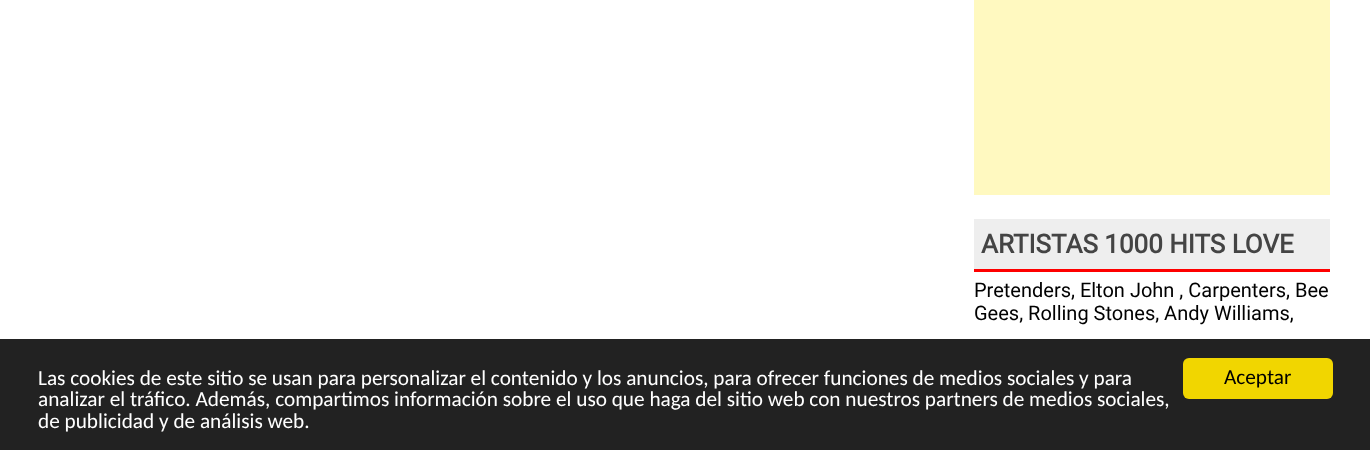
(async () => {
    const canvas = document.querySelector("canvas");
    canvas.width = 1370;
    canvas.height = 450;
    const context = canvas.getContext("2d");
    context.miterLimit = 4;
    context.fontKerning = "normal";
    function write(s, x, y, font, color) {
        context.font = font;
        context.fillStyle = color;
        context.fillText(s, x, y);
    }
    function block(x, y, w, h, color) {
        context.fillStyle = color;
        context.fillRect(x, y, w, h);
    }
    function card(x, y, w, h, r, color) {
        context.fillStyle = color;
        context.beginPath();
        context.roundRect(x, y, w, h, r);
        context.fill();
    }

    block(0, 0, 1370, 450, "rgb(255, 255, 255)");
    block(974, 0, 356, 195, "rgb(255, 249, 192)");
    block(974, 219, 356, 50, "rgb(238, 238, 238)");
    block(974, 269, 356, 3, "rgb(254, 0, 0)");
    write("ARTISTAS 1000 HITS LOVE", 981, 253, "bold 26px Roboto", "rgb(68, 68, 68)");
    write("Pretenders, Elton John , Carpenters, Bee", 974, 297, "20px Roboto", "rgb(0, 0, 0)");
    write("Gees, Rolling Stones, Andy Williams,", 974, 320, "20px Roboto", "rgb(0, 0, 0)");
    block(0, 339, 1370, 111, "rgb(34, 34, 34)");
    write("Las cookies de este sitio se usan para personalizar el contenido y los anuncios, para ofrecer funciones de medios sociales y para", 38, 385, "21.25px Carlito", "rgb(255, 255, 255)");
    write("analizar el tráfico. Además, compartimos información sobre el uso que haga del sitio web con nuestros partners de medios sociales,", 38, 406, "21.25px Carlito", "rgb(255, 255, 255)");
    write("de publicidad y de análisis web.", 38, 428, "21.25px Carlito", "rgb(255, 255, 255)");
    card(1183, 358, 150, 41, 6, "rgb(241, 214, 0)");
    write("Aceptar", 1224, 384, "21.25px Carlito", "rgb(0, 0, 0)");
})();
